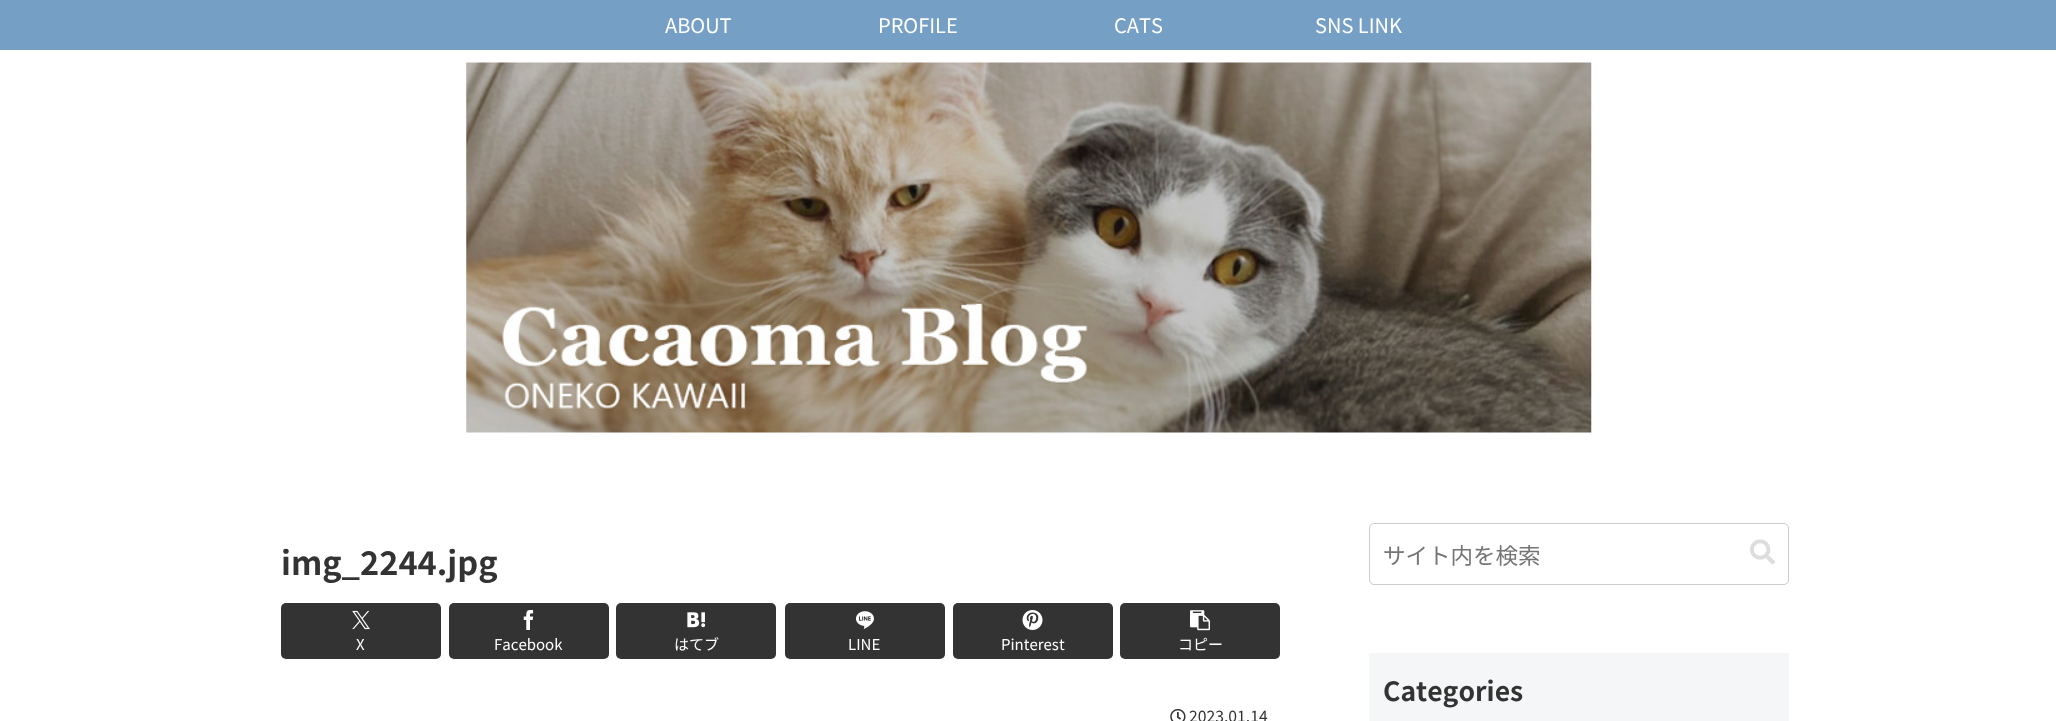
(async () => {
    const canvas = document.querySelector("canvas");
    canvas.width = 2056;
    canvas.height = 721;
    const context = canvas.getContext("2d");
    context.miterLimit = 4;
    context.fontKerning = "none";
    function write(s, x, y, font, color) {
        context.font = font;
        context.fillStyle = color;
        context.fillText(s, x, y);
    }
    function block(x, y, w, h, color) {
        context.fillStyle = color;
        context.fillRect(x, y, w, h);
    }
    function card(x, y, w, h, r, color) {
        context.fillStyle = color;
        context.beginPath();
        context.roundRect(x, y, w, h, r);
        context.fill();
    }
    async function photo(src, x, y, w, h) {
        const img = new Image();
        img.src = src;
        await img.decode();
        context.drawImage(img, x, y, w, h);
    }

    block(0, 0, 2056, 721, "rgb(255, 255, 255)");
    block(0, 0, 2056, 50, "rgb(117, 159, 197)");
    write("ABOUT", 665, 33, "20px Noto Sans JP", "rgb(255, 255, 255)");
    write("PROFILE", 878, 33, "20px Noto Sans JP", "rgb(255, 255, 255)");
    write("CATS", 1114, 33, "20px Noto Sans JP", "rgb(255, 255, 255)");
    write("SNS LINK", 1315, 33, "20px Noto Sans JP", "rgb(255, 255, 255)");
    await photo("media/1.png", 466, 62, 1126, 371);
    write("img_2244.jpg", 281, 575, "bold 32.5px Noto Sans JP", "rgb(51, 51, 51)");
    card(281, 603, 160, 56, 5, "rgb(51, 51, 51)");
    await photo("media/2.png", 352, 610, 18, 20);
    write("X", 356, 650, "15px Noto Sans JP", "rgb(255, 255, 255)");
    card(449, 603, 160, 56, 5, "rgb(51, 51, 51)");
    await photo("media/3.png", 523, 610, 11, 20);
    write("Facebook", 494, 650, "15px Noto Sans JP", "rgb(255, 255, 255)");
    card(616, 603, 160, 56, 5, "rgb(51, 51, 51)");
    await photo("media/4.png", 687, 612, 19, 16);
    write("はてブ", 674, 650, "15px Noto Sans JP", "rgb(255, 255, 255)");
    card(785, 603, 160, 56, 5, "rgb(51, 51, 51)");
    await photo("media/5.png", 856, 611, 18, 18);
    write("LINE", 848, 650, "15px Noto Sans JP", "rgb(255, 255, 255)");
    card(953, 603, 160, 56, 5, "rgb(51, 51, 51)");
    await photo("media/6.png", 1022, 610, 21, 20);
    write("Pinterest", 1001, 650, "15px Noto Sans JP", "rgb(255, 255, 255)");
    card(1120, 603, 160, 56, 5, "rgb(51, 51, 51)");
    await photo("media/7.png", 1190, 610, 20, 21);
    write("コピー", 1178, 650, "15px Noto Sans JP", "rgb(255, 255, 255)");
    await photo("media/8.png", 1170, 709, 16, 12);
    write("2023.01.14", 1189, 722, "15.75px Noto Sans JP", "rgb(51, 51, 51)");
    context.beginPath();
    context.roundRect(1369.5, 523.5, 419, 61, 4.5);
    context.strokeStyle = "rgb(204, 204, 204)";
    context.stroke();
    write("サイト内を検索", 1383, 564, "22.5px Noto Sans JP", "rgb(117, 117, 117)");
    await photo("media/9.png", 1750, 539, 25, 26);
    card(1369, 653, 420, 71, 2.5, "rgb(245, 246, 247)");
    write("Categories", 1383, 701, "bold 26.5px Noto Sans JP", "rgb(51, 51, 51)");
})();
